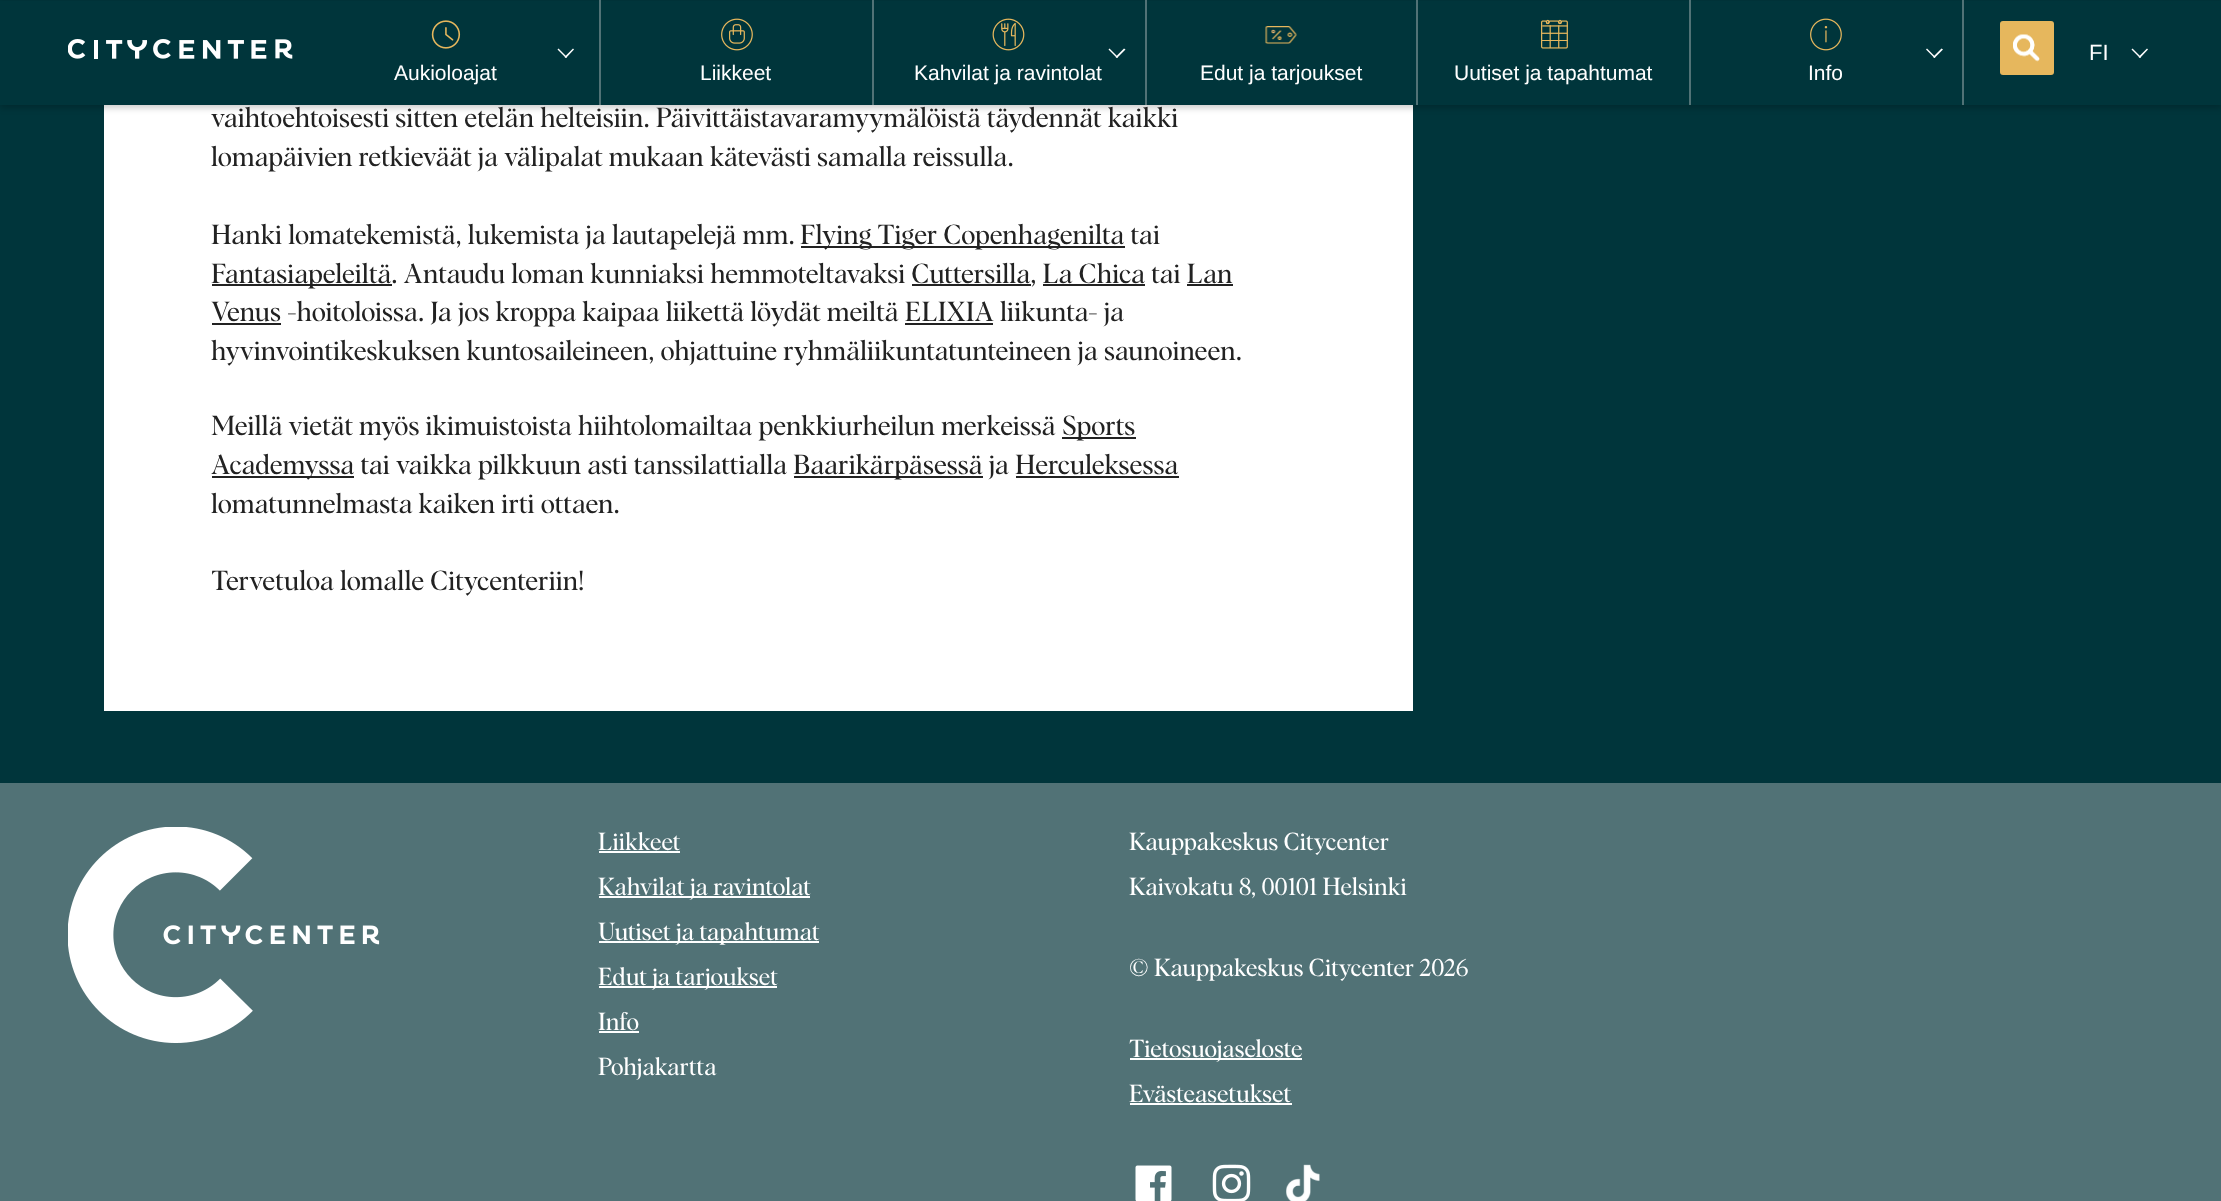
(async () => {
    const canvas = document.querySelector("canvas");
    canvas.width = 2221;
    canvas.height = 1201;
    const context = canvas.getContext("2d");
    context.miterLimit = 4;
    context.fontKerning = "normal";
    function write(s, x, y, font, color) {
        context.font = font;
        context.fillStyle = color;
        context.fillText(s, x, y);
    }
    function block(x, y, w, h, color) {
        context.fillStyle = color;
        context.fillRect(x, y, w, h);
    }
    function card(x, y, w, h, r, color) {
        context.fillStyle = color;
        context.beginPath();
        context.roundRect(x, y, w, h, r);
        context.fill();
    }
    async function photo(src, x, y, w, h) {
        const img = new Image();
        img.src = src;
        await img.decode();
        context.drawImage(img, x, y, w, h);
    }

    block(0, 0, 2221, 1201, "rgb(0, 53, 59)");
    block(104, 105, 1309, 606, "rgb(255, 255, 255)");
    context.fillStyle = "rgba(0, 0, 0, 0.2)";
    context.filter = "blur(3px)";
    context.beginPath();
    context.rect(0, 3, 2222, 105);
    context.fill();
    context.filter = "none";
    block(0, 1, 2221, 104, "rgb(0, 53, 59)");
    await photo("media/1.png", 68, 39, 225, 20);
    card(2000, 21, 54, 54, 3, "rgb(230, 183, 93)");
    await photo("media/2.png", 2013, 34, 27, 28);
    write("FI", 2089, 60, "22px Liberation Sans", "rgb(255, 255, 255)");
    context.beginPath();
    context.moveTo(2147, 48.5);
    context.lineTo(2148, 49.5);
    context.lineTo(2140, 58);
    context.lineTo(2138.5, 57);
    context.closePath();
    context.fill();
    context.beginPath();
    context.moveTo(2132.5, 48.5);
    context.lineTo(2141, 57);
    context.lineTo(2140, 58);
    context.lineTo(2131.5, 49.5);
    context.closePath();
    context.fill();
    block(599, 0, 2, 105, "rgb(81, 114, 118)");
    await photo("media/3.png", 431, 20, 30, 29);
    context.fillStyle = "rgb(255, 255, 255)";
    context.beginPath();
    context.moveTo(573, 48.5);
    context.lineTo(574, 49.5);
    context.lineTo(566, 58);
    context.lineTo(564.5, 57);
    context.closePath();
    context.fill();
    context.beginPath();
    context.moveTo(558.5, 48.5);
    context.lineTo(567, 57);
    context.lineTo(566, 58);
    context.lineTo(557.5, 49.5);
    context.closePath();
    context.fill();
    write("Aukioloajat", 394, 80, "21px Liberation Sans", "rgb(255, 255, 255)");
    block(872, 0, 2, 105, "rgb(81, 114, 118)");
    await photo("media/4.png", 721, 18, 32, 33);
    write("Liikkeet", 700, 80, "21px Liberation Sans", "rgb(255, 255, 255)");
    block(1145, 0, 2, 105, "rgb(81, 114, 118)");
    context.fillStyle = "rgb(255, 255, 255)";
    context.beginPath();
    context.moveTo(1124, 48.5);
    context.lineTo(1125.5, 49.5);
    context.lineTo(1117, 58);
    context.lineTo(1115.5, 57);
    context.closePath();
    context.fill();
    context.beginPath();
    context.moveTo(1109.5, 48.5);
    context.lineTo(1118, 57);
    context.lineTo(1117, 58);
    context.lineTo(1108.5, 49.5);
    context.closePath();
    context.fill();
    await photo("media/5.png", 992, 18, 33, 33);
    write("Kahvilat ja ravintolat", 914, 80, "21px Liberation Sans", "rgb(255, 255, 255)");
    block(1416, 0, 2, 105, "rgb(81, 114, 118)");
    await photo("media/6.png", 1265, 26, 32, 18);
    write("Edut ja tarjoukset", 1200, 80, "21px Liberation Sans", "rgb(255, 255, 255)");
    block(1689, 0, 2, 105, "rgb(81, 114, 118)");
    await photo("media/7.png", 1541, 19, 27, 30);
    write("Uutiset ja tapahtumat", 1454, 80, "21px Liberation Sans", "rgb(255, 255, 255)");
    block(1962, 0, 2, 105, "rgb(81, 114, 118)");
    context.fillStyle = "rgb(255, 255, 255)";
    context.beginPath();
    context.moveTo(1941.5, 48.5);
    context.lineTo(1943, 49.5);
    context.lineTo(1934.5, 58);
    context.lineTo(1933, 57);
    context.closePath();
    context.fill();
    context.beginPath();
    context.moveTo(1927, 48.5);
    context.lineTo(1935.5, 57);
    context.lineTo(1934.5, 58);
    context.lineTo(1926, 49.5);
    context.closePath();
    context.fill();
    await photo("media/8.png", 1810, 18, 32, 33);
    write("Info", 1808, 80, "21px Liberation Sans", "rgb(255, 255, 255)");
    write("vaihtoehtoisesti sitten etelän helteisiin. Päivittäistavaramyymälöistä täydennät kaikki", 211, 127, "27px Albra", "rgb(34, 34, 34)");
    write("lomapäivien retkieväät ja välipalat mukaan kätevästi samalla reissulla.", 211, 166, "27px Albra", "rgb(34, 34, 34)");
    write("Hanki lomatekemistä, lukemista ja lautapelejä mm.", 211, 244, "27px Albra", "rgb(34, 34, 34)");
    block(801, 246, 324, 2, "rgb(34, 34, 34)");
    write("Flying Tiger Copenhagenilta tai", 800, 244, "27px Albra", "rgb(34, 34, 34)");
    block(212, 284, 180, 2, "rgb(34, 34, 34)");
    write("Fantasiapeleiltä. Antaudu loman kunniaksi hemmoteltavaksi Cuttersilla, La Chica tai Lan", 211, 283, "27px Albra", "rgb(34, 34, 34)");
    block(912, 284, 119, 2, "rgb(34, 34, 34)");
    block(1043, 284, 102, 2, "rgb(34, 34, 34)");
    block(212, 323, 69, 2, "rgb(34, 34, 34)");
    write("Venus -hoitoloissa. Ja jos kroppa kaipaa liikettä löydät meiltä ELIXIA liikunta- ja", 211, 321, "27px Albra", "rgb(34, 34, 34)");
    block(1187, 284, 46, 2, "rgb(34, 34, 34)");
    block(905, 323, 88, 2, "rgb(34, 34, 34)");
    write("hyvinvointikeskuksen kuntosaileineen, ohjattuine ryhmäliikuntatunteineen ja saunoineen.", 211, 360, "27px Albra", "rgb(34, 34, 34)");
    write("Meillä vietät myös ikimuistoista hiihtolomailtaa penkkiurheilun merkeissä", 211, 435, "27px Albra", "rgb(34, 34, 34)");
    block(1062, 437, 74, 2, "rgb(34, 34, 34)");
    write("Sports", 1062, 435, "27px Albra", "rgb(34, 34, 34)");
    block(212, 476, 142, 2, "rgb(34, 34, 34)");
    write("Academyssa tai vaikka pilkkuun asti tanssilattialla", 211, 474, "27px Albra", "rgb(34, 34, 34)");
    block(794, 476, 189, 2, "rgb(34, 34, 34)");
    write("Baarikärpäsessä ja Herculeksessa", 793, 474, "27px Albra", "rgb(34, 34, 34)");
    block(1016, 476, 163, 2, "rgb(34, 34, 34)");
    write("lomatunnelmasta kaiken irti ottaen.", 211, 513, "27px Albra", "rgb(34, 34, 34)");
    context.save();
    context.beginPath();
    context.rect(212, 0, 1057, 639);
    context.clip();
    write("Tervetuloa lomalle Citycenteriin!", 211, 590, "27px Albra", "rgb(34, 34, 34)");
    context.restore();
    block(0, 783, 2221, 418, "rgb(81, 114, 118)");
    await photo("media/9.png", 68, 827, 312, 216);
    write("Liikkeet", 598, 850, "24px Albra", "rgb(255, 255, 255)");
    block(599, 851, 81, 2, "rgb(255, 255, 255)");
    block(599, 896, 211, 2, "rgb(255, 255, 255)");
    write("Kahvilat ja ravintolat", 598, 895, "24px Albra", "rgb(255, 255, 255)");
    block(599, 941, 220, 2, "rgb(255, 255, 255)");
    write("Uutiset ja tapahtumat", 598, 940, "24px Albra", "rgb(255, 255, 255)");
    block(599, 986, 178, 2, "rgb(255, 255, 255)");
    write("Edut ja tarjoukset", 598, 985, "24px Albra", "rgb(255, 255, 255)");
    write("Info", 598, 1030, "24px Albra", "rgb(255, 255, 255)");
    block(599, 1031, 40, 2, "rgb(255, 255, 255)");
    write("Pohjakartta", 598, 1075, "24px Albra", "rgb(255, 255, 255)");
    write("Kauppakeskus Citycenter", 1129, 850, "24px Albra", "rgb(255, 255, 255)");
    write("Kaivokatu 8, 00101 Helsinki", 1129, 895, "24px Albra", "rgb(255, 255, 255)");
    write("© Kauppakeskus Citycenter 2026", 1129, 976, "24px Albra", "rgb(255, 255, 255)");
    block(1130, 1058, 172, 2, "rgb(255, 255, 255)");
    write("Tietosuojaseloste", 1129, 1057, "24px Albra", "rgb(255, 255, 255)");
    write("Evästeasetukset", 1129, 1102, "24px Albra", "rgb(255, 255, 255)");
    block(1130, 1103, 162, 2, "rgb(255, 255, 255)");
    await photo("media/10.png", 1135, 1165, 37, 36);
    await photo("media/11.png", 1212, 1164, 39, 37);
    await photo("media/12.png", 1286, 1164, 34, 37);
})();
